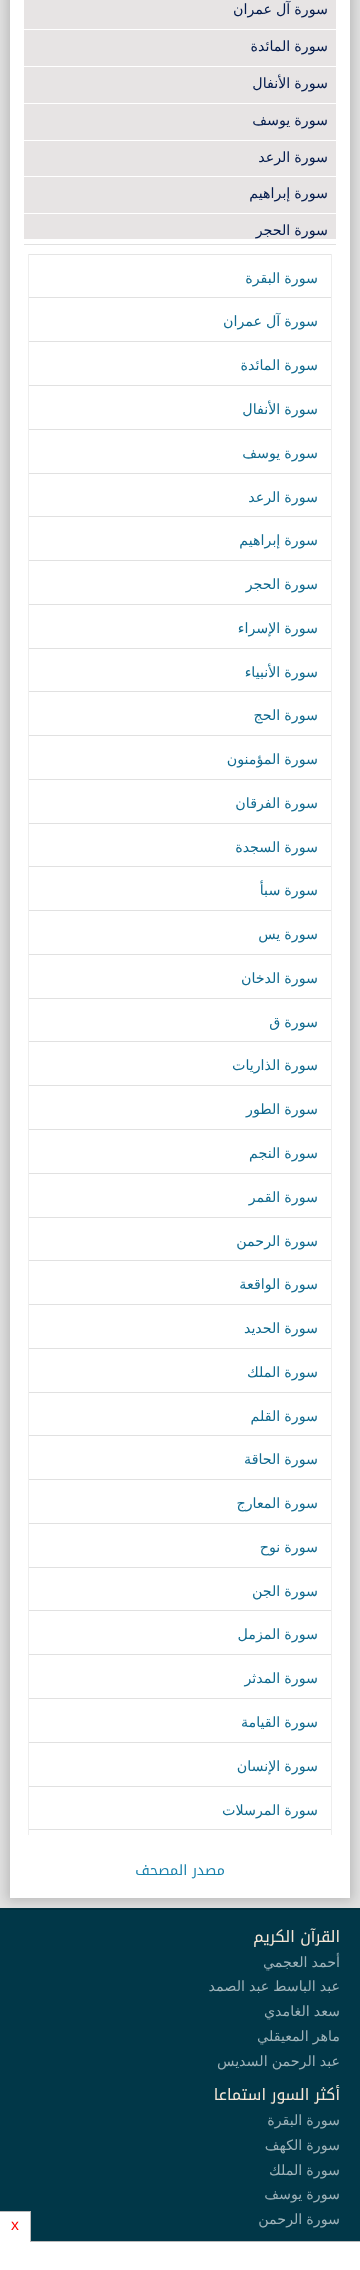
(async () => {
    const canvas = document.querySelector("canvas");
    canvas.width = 360;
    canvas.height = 2270;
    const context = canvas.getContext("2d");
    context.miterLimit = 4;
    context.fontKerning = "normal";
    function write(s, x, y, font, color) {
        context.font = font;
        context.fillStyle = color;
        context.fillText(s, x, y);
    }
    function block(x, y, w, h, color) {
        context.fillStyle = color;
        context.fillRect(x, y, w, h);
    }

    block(0, 0, 360, 2270, "rgb(225, 225, 225)");
    context.fillStyle = "rgba(0, 0, 0, 0.17)";
    context.filter = "blur(6px)";
    context.beginPath();
    context.rect(7, -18, 346, 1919);
    context.fill();
    context.filter = "none";
    block(10, 0, 340, 1898, "rgb(255, 255, 255)");
    block(24, 244, 312, 1, "rgb(225, 225, 225)");
    block(24, 0, 312, 239, "rgb(231, 228, 228)");
    block(24, 29, 312, 1, "rgb(255, 255, 255)");
    context.wordSpacing = "-0.5px";
    context.direction = "rtl";
    write("سورة آل عمران", 328, 14, "14.25px DejaVu Sans", "rgb(1, 25, 75)");
    block(24, 66, 312, 1, "rgb(255, 255, 255)");
    write("سورة المائدة", 328, 51, "14.25px DejaVu Sans", "rgb(1, 25, 75)");
    block(24, 103, 312, 1, "rgb(255, 255, 255)");
    write("سورة الأنفال", 328, 88, "14.25px DejaVu Sans", "rgb(1, 25, 75)");
    block(24, 140, 312, 1, "rgb(255, 255, 255)");
    write("سورة يوسف", 328, 125, "14.25px DejaVu Sans", "rgb(1, 25, 75)");
    block(24, 176, 312, 1, "rgb(255, 255, 255)");
    write("سورة الرعد", 328, 162, "14.25px DejaVu Sans", "rgb(1, 25, 75)");
    block(24, 213, 312, 1, "rgb(255, 255, 255)");
    write("سورة إبراهيم", 328, 198, "14.25px DejaVu Sans", "rgb(1, 25, 75)");
    write("سورة الحجر", 328, 235, "14.25px DejaVu Sans", "rgb(1, 25, 75)");
    block(28, 254, 304, 1, "rgb(229, 229, 229)");
    block(331, 254, 1, 1581, "rgb(238, 238, 238)");
    block(28, 254, 1, 1581, "rgb(238, 238, 238)");
    block(29, 297, 302, 1, "rgb(225, 225, 225)");
    write("سورة البقرة", 318, 283, "14.25px DejaVu Sans", "rgb(16, 106, 143)");
    block(29, 341, 302, 1, "rgb(225, 225, 225)");
    write("سورة آل عمران", 318, 326, "14.25px DejaVu Sans", "rgb(16, 106, 143)");
    block(29, 385, 302, 1, "rgb(225, 225, 225)");
    write("سورة المائدة", 318, 370, "14.25px DejaVu Sans", "rgb(16, 106, 143)");
    block(29, 429, 302, 1, "rgb(225, 225, 225)");
    write("سورة الأنفال", 318, 414, "14.25px DejaVu Sans", "rgb(16, 106, 143)");
    block(29, 473, 302, 1, "rgb(225, 225, 225)");
    write("سورة يوسف", 318, 458, "14.25px DejaVu Sans", "rgb(16, 106, 143)");
    block(29, 516, 302, 1, "rgb(225, 225, 225)");
    write("سورة الرعد", 318, 502, "14.25px DejaVu Sans", "rgb(16, 106, 143)");
    block(29, 560, 302, 1, "rgb(225, 225, 225)");
    write("سورة إبراهيم", 318, 545, "14.25px DejaVu Sans", "rgb(16, 106, 143)");
    block(29, 604, 302, 1, "rgb(225, 225, 225)");
    write("سورة الحجر", 318, 589, "14.25px DejaVu Sans", "rgb(16, 106, 143)");
    block(29, 648, 302, 1, "rgb(225, 225, 225)");
    write("سورة الإسراء", 318, 633, "14.25px DejaVu Sans", "rgb(16, 106, 143)");
    block(29, 691, 302, 1, "rgb(225, 225, 225)");
    write("سورة الأنبياء", 318, 677, "14.25px DejaVu Sans", "rgb(16, 106, 143)");
    block(29, 735, 302, 1, "rgb(225, 225, 225)");
    write("سورة الحج", 318, 720, "14.25px DejaVu Sans", "rgb(16, 106, 143)");
    block(29, 779, 302, 1, "rgb(225, 225, 225)");
    write("سورة المؤمنون", 318, 764, "14.25px DejaVu Sans", "rgb(16, 106, 143)");
    block(29, 823, 302, 1, "rgb(225, 225, 225)");
    write("سورة الفرقان", 318, 808, "14.25px DejaVu Sans", "rgb(16, 106, 143)");
    block(29, 866, 302, 1, "rgb(225, 225, 225)");
    write("سورة السجدة", 318, 852, "14.25px DejaVu Sans", "rgb(16, 106, 143)");
    block(29, 910, 302, 1, "rgb(225, 225, 225)");
    write("سورة سبأ", 318, 895, "14.25px DejaVu Sans", "rgb(16, 106, 143)");
    block(29, 954, 302, 1, "rgb(225, 225, 225)");
    write("سورة يس", 318, 939, "14.25px DejaVu Sans", "rgb(16, 106, 143)");
    block(29, 998, 302, 1, "rgb(225, 225, 225)");
    write("سورة الدخان", 318, 983, "14.25px DejaVu Sans", "rgb(16, 106, 143)");
    block(29, 1041, 302, 1, "rgb(225, 225, 225)");
    write("سورة ق", 318, 1027, "14.25px DejaVu Sans", "rgb(16, 106, 143)");
    block(29, 1085, 302, 1, "rgb(225, 225, 225)");
    write("سورة الذاريات", 318, 1070, "14.25px DejaVu Sans", "rgb(16, 106, 143)");
    block(29, 1129, 302, 1, "rgb(225, 225, 225)");
    write("سورة الطور", 318, 1114, "14.25px DejaVu Sans", "rgb(16, 106, 143)");
    block(29, 1173, 302, 1, "rgb(225, 225, 225)");
    write("سورة النجم", 318, 1158, "14.25px DejaVu Sans", "rgb(16, 106, 143)");
    block(29, 1217, 302, 1, "rgb(225, 225, 225)");
    write("سورة القمر", 318, 1202, "14.25px DejaVu Sans", "rgb(16, 106, 143)");
    block(29, 1260, 302, 1, "rgb(225, 225, 225)");
    write("سورة الرحمن", 318, 1246, "14.25px DejaVu Sans", "rgb(16, 106, 143)");
    block(29, 1304, 302, 1, "rgb(225, 225, 225)");
    write("سورة الواقعة", 318, 1289, "14.25px DejaVu Sans", "rgb(16, 106, 143)");
    block(29, 1348, 302, 1, "rgb(225, 225, 225)");
    write("سورة الحديد", 318, 1333, "14.25px DejaVu Sans", "rgb(16, 106, 143)");
    block(29, 1392, 302, 1, "rgb(225, 225, 225)");
    write("سورة الملك", 318, 1377, "14.25px DejaVu Sans", "rgb(16, 106, 143)");
    block(29, 1435, 302, 1, "rgb(225, 225, 225)");
    write("سورة القلم", 318, 1421, "14.25px DejaVu Sans", "rgb(16, 106, 143)");
    block(29, 1479, 302, 1, "rgb(225, 225, 225)");
    write("سورة الحاقة", 318, 1464, "14.25px DejaVu Sans", "rgb(16, 106, 143)");
    block(29, 1523, 302, 1, "rgb(225, 225, 225)");
    write("سورة المعارج", 318, 1508, "14.25px DejaVu Sans", "rgb(16, 106, 143)");
    block(29, 1567, 302, 1, "rgb(225, 225, 225)");
    write("سورة نوح", 318, 1552, "14.25px DejaVu Sans", "rgb(16, 106, 143)");
    block(29, 1610, 302, 1, "rgb(225, 225, 225)");
    write("سورة الجن", 318, 1596, "14.25px DejaVu Sans", "rgb(16, 106, 143)");
    block(29, 1654, 302, 1, "rgb(225, 225, 225)");
    write("سورة المزمل", 318, 1639, "14.25px DejaVu Sans", "rgb(16, 106, 143)");
    block(29, 1698, 302, 1, "rgb(225, 225, 225)");
    write("سورة المدثر", 318, 1683, "14.25px DejaVu Sans", "rgb(16, 106, 143)");
    block(29, 1742, 302, 1, "rgb(225, 225, 225)");
    write("سورة القيامة", 318, 1727, "14.25px DejaVu Sans", "rgb(16, 106, 143)");
    block(29, 1786, 302, 1, "rgb(225, 225, 225)");
    write("سورة الإنسان", 318, 1771, "14.25px DejaVu Sans", "rgb(16, 106, 143)");
    block(29, 1829, 302, 1, "rgb(225, 225, 225)");
    write("سورة المرسلات", 318, 1815, "14.25px DejaVu Sans", "rgb(16, 106, 143)");
    context.wordSpacing = "0px";
    write("مصدر المصحف", 225, 1875, "14.25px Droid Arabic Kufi", "rgb(25, 129, 171)");
    block(0, 1910, 360, 331, "rgb(1, 55, 72)");
    block(0, 1908, 360, 2, "rgb(1, 48, 63)");
    write("القرآن الكريم", 340, 1942, "15.75px Droid Arabic Kufi", "rgb(246, 231, 215)");
    context.wordSpacing = "-0.5px";
    write("أحمد العجمي", 340, 1967, "14.25px DejaVu Sans", "rgb(156, 177, 184)");
    write("عبد الباسط عبد الصمد", 340, 1991, "14.25px DejaVu Sans", "rgb(156, 177, 184)");
    write("سعد الغامدي", 340, 2016, "14.25px DejaVu Sans", "rgb(156, 177, 184)");
    write("ماهر المعيقلي", 340, 2041, "14.25px DejaVu Sans", "rgb(156, 177, 184)");
    write("عبد الرحمن السديس", 340, 2066, "14.25px DejaVu Sans", "rgb(156, 177, 184)");
    context.wordSpacing = "0px";
    write("أكثر السور استماعا", 340, 2100, "15.75px Droid Arabic Kufi", "rgb(246, 231, 215)");
    context.wordSpacing = "-0.5px";
    write("سورة البقرة", 340, 2125, "14.25px DejaVu Sans", "rgb(156, 177, 184)");
    write("سورة الكهف", 340, 2150, "14.25px DejaVu Sans", "rgb(156, 177, 184)");
    write("سورة الملك", 340, 2175, "14.25px DejaVu Sans", "rgb(156, 177, 184)");
    write("سورة يوسف", 340, 2199, "14.25px DejaVu Sans", "rgb(156, 177, 184)");
    write("سورة الرحمن", 340, 2224, "14.25px DejaVu Sans", "rgb(156, 177, 184)");
    block(0, 2242, 360, 28, "rgb(255, 255, 255)");
    block(31, 2241, 329, 1, "rgb(188, 186, 186)");
    block(0, 2212, 30, 30, "rgb(255, 255, 255)");
    block(0, 2211, 31, 1, "rgb(188, 186, 186)");
    block(30, 2211, 1, 31, "rgb(188, 186, 186)");
    context.wordSpacing = "0px";
    context.direction = "ltr";
    write("x", 11, 2230, "15.75px Liberation Sans", "rgb(255, 0, 0)");
})();
